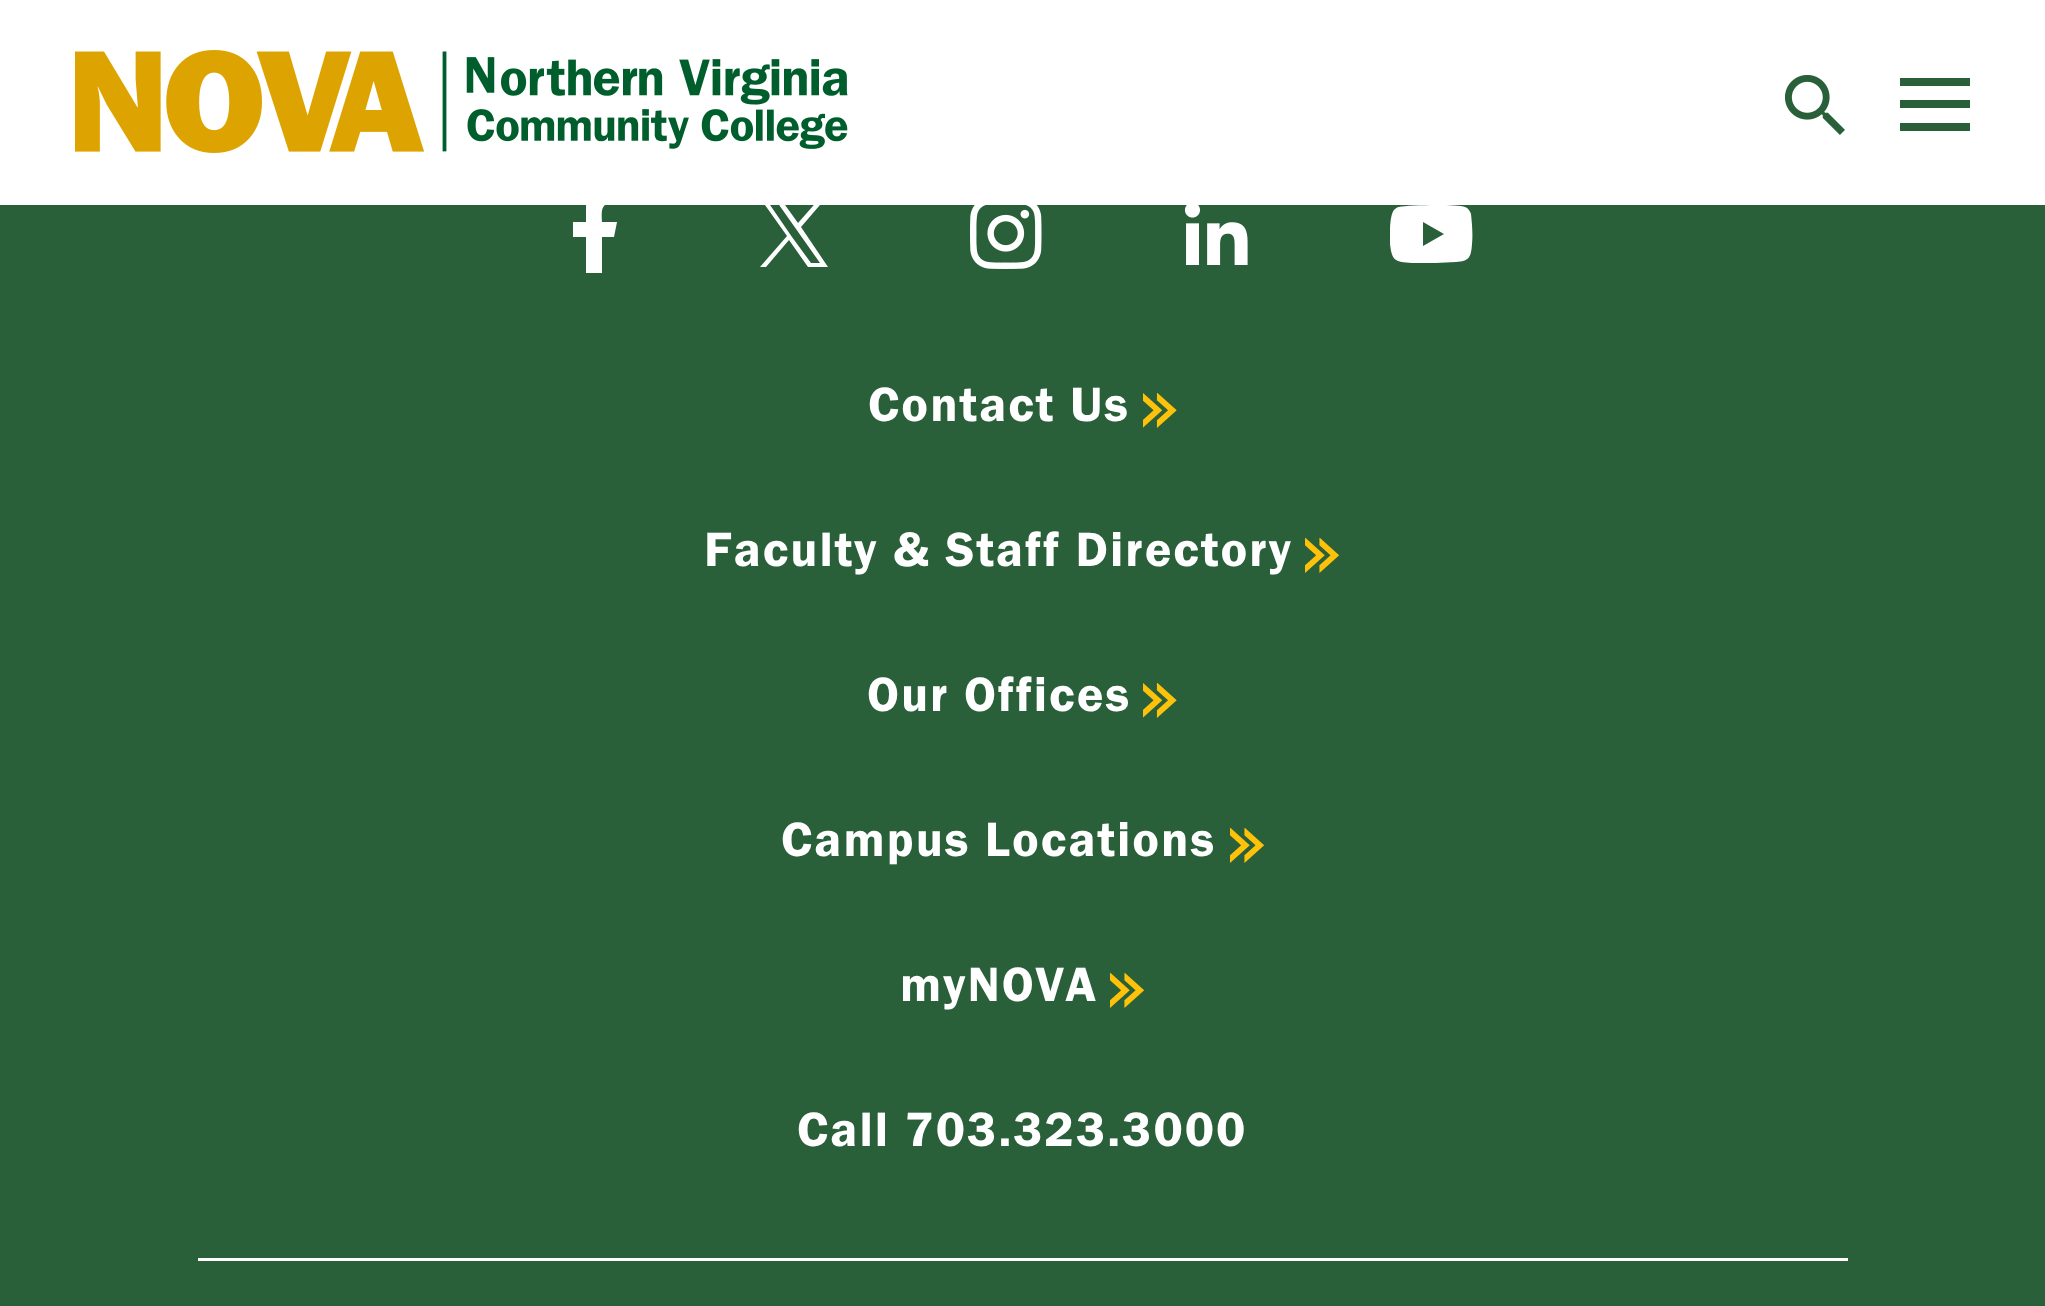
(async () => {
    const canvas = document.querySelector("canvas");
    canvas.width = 2045;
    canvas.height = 1306;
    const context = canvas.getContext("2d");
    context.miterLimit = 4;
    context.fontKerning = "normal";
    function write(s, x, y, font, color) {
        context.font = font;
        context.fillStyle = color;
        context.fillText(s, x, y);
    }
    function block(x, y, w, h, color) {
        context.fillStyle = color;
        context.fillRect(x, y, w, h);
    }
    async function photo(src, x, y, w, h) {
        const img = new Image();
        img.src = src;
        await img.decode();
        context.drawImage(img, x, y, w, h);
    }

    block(0, 0, 2045, 1306, "rgb(41, 96, 57)");
    context.fillStyle = "rgb(255, 255, 255)";
    context.beginPath();
    context.moveTo(614, 237);
    context.lineTo(617, 222);
    context.lineTo(602, 222);
    context.bezierCurveTo(602, 216, 600, 205, 608, 204);
    context.lineTo(617, 204);
    context.lineTo(617, 191);
    context.bezierCurveTo(604, 189, 589, 189, 586, 206);
    context.lineTo(586, 222);
    context.lineTo(573, 222);
    context.lineTo(573, 237);
    context.lineTo(586, 237);
    context.lineTo(586, 273);
    context.lineTo(602, 273);
    context.lineTo(602, 237);
    context.closePath();
    context.fill();
    context.beginPath();
    context.moveTo(801, 227);
    context.lineTo(826, 198);
    context.lineTo(820, 198);
    context.lineTo(798, 223);
    context.lineTo(780, 198);
    context.lineTo(760, 198);
    context.lineTo(787, 236);
    context.lineTo(760, 267);
    context.lineTo(766, 267);
    context.lineTo(789, 240);
    context.lineTo(808, 267);
    context.lineTo(828, 267);
    context.closePath();
    context.moveTo(792, 237);
    context.lineTo(768, 202);
    context.lineTo(777, 202);
    context.lineTo(820, 263);
    context.lineTo(811, 263);
    context.closePath();
    context.fill();
    block(0, 0, 2045, 205, "rgb(255, 255, 255)");
    await photo("media/1.png", 75, 50, 773, 103);
    await photo("media/2.png", 1785, 75, 60, 60);
    block(1900, 100, 70, 8, "rgb(41, 96, 57)");
    block(1900, 78, 70, 8, "rgb(41, 96, 57)");
    block(1900, 123, 70, 8, "rgb(41, 96, 57)");
    await photo("media/3.png", 970, 205, 72, 64);
    await photo("media/4.png", 1185, 205, 63, 60);
    context.save();
    context.beginPath();
    context.rect(1390, 205, 83, 58);
    context.clip();
    context.fillStyle = "rgb(255, 255, 255)";
    context.beginPath();
    context.moveTo(1471, 214);
    context.bezierCurveTo(1470, 211, 1468, 208, 1465, 207);
    context.bezierCurveTo(1457, 204, 1408, 205, 1399, 207);
    context.bezierCurveTo(1397, 207, 1395, 209, 1394, 210);
    context.bezierCurveTo(1389, 216, 1390, 237, 1390, 244);
    context.bezierCurveTo(1392, 261, 1395, 262, 1412, 263);
    context.lineTo(1435, 263);
    context.lineTo(1456, 262);
    context.bezierCurveTo(1469, 261, 1471, 258, 1472, 244);
    context.bezierCurveTo(1473, 234, 1472, 224, 1471, 214);
    context.closePath();
    context.moveTo(1423, 246);
    context.lineTo(1423, 222);
    context.lineTo(1444, 234);
    context.closePath();
    context.fill();
    context.restore();
    context.letterSpacing = "2px";
    write("Contact Us", 868, 421, "50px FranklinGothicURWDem", "rgb(255, 255, 255)");
    await photo("media/5.png", 1143, 393, 34, 35);
    write("Faculty & Staff Directory", 704, 566, "50px FranklinGothicURWDem", "rgb(255, 255, 255)");
    await photo("media/6.png", 1305, 538, 35, 35);
    write("Our Offices", 867, 711, "50px FranklinGothicURWDem", "rgb(255, 255, 255)");
    await photo("media/5.png", 1143, 683, 34, 35);
    write("Campus Locations", 781, 856, "50px FranklinGothicURWDem", "rgb(255, 255, 255)");
    await photo("media/6.png", 1230, 828, 35, 35);
    write("myNOVA", 900, 1001, "50px FranklinGothicURWDem", "rgb(255, 255, 255)");
    await photo("media/6.png", 1110, 973, 35, 35);
    write("Call 703.323.3000", 797, 1146, "50px FranklinGothicURWDem", "rgb(255, 255, 255)");
    block(198, 1258, 1650, 3, "rgb(255, 255, 255)");
})();
